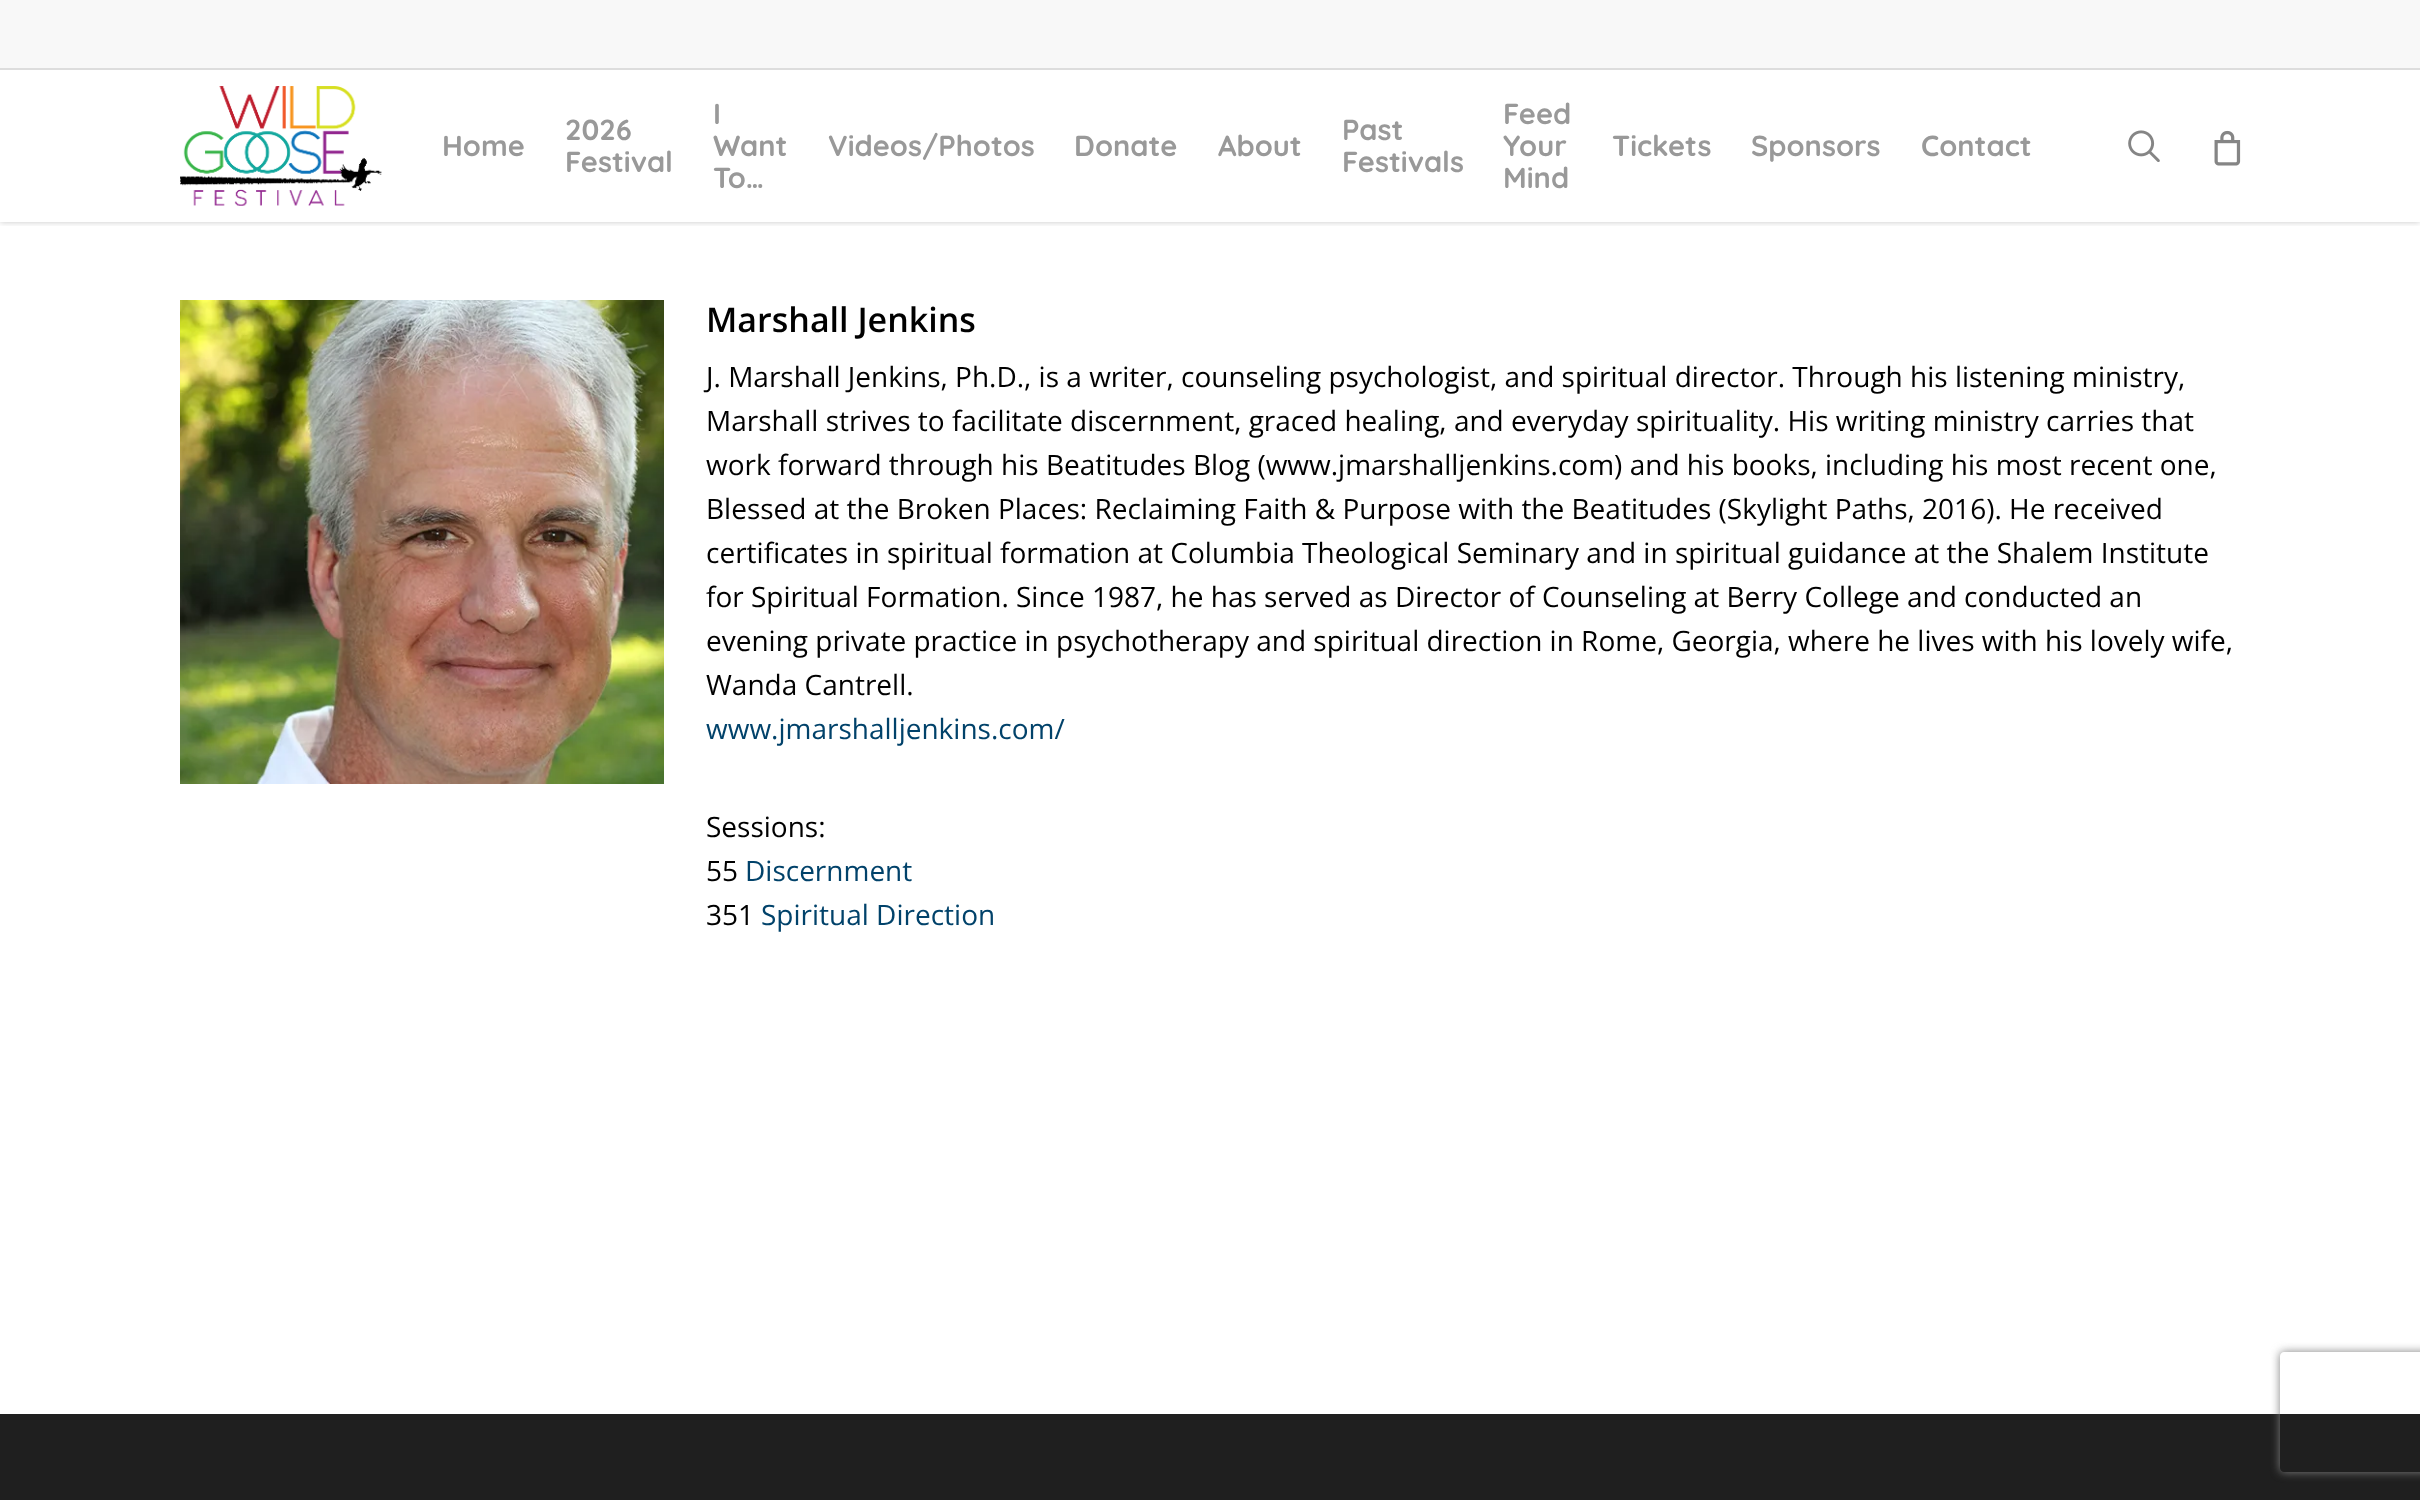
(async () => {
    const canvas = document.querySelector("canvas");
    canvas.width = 2420;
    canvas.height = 1500;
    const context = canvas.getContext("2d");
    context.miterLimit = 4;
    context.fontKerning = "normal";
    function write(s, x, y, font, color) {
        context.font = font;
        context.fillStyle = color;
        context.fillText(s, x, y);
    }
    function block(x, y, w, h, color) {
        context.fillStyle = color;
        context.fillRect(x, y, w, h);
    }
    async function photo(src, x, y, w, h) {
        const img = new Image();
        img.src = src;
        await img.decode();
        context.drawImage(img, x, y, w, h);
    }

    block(0, 0, 2420, 1500, "rgb(255, 255, 255)");
    context.save();
    context.beginPath();
    context.rect(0, 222, 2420, 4);
    context.clip();
    context.fillStyle = "rgba(0, 0, 0, 0.22)";
    context.filter = "blur(3px)";
    context.beginPath();
    context.rect(0, 0, 2420, 222);
    context.fill();
    context.filter = "none";
    context.restore();
    block(0, 0, 2420, 68, "rgb(248, 248, 248)");
    block(0, 68, 2420, 2, "rgb(221, 221, 221)");
    await photo("media/1.png", 180, 86, 202, 120);
    write("Home", 442, 156, "300 29px Quicksand", "rgb(153, 153, 153)");
    write("2026", 565, 140, "300 29px Quicksand", "rgb(153, 153, 153)");
    write("Festival", 565, 172, "300 29px Quicksand", "rgb(153, 153, 153)");
    write("I", 713, 124, "300 29px Quicksand", "rgb(153, 153, 153)");
    write("Want", 713, 156, "300 29px Quicksand", "rgb(153, 153, 153)");
    write("To…", 713, 188, "300 29px Quicksand", "rgb(153, 153, 153)");
    write("Videos/Photos", 828, 156, "300 29px Quicksand", "rgb(153, 153, 153)");
    write("Donate", 1074, 156, "300 29px Quicksand", "rgb(153, 153, 153)");
    write("About", 1218, 156, "300 29px Quicksand", "rgb(153, 153, 153)");
    write("Past", 1342, 140, "300 29px Quicksand", "rgb(153, 153, 153)");
    write("Festivals", 1342, 172, "300 29px Quicksand", "rgb(153, 153, 153)");
    write("Feed", 1503, 124, "300 29px Quicksand", "rgb(153, 153, 153)");
    write("Your", 1503, 156, "300 29px Quicksand", "rgb(153, 153, 153)");
    write("Mind", 1503, 188, "300 29px Quicksand", "rgb(153, 153, 153)");
    write("Tickets", 1612, 156, "300 29px Quicksand", "rgb(153, 153, 153)");
    write("Sponsors", 1751, 156, "300 29px Quicksand", "rgb(153, 153, 153)");
    write("Contact", 1921, 156, "300 29px Quicksand", "rgb(153, 153, 153)");
    await photo("media/2.png", 2128, 130, 32, 32);
    await photo("media/3.png", 2214, 130, 27, 36);
    await photo("media/4.png", 180, 300, 484, 484);
    write("Marshall Jenkins", 706, 332, "600 34px Open Sans", "rgb(0, 0, 0)");
    write("J. Marshall Jenkins, Ph.D., is a writer, counseling psychologist, and spiritual director. Through his listening ministry,", 706, 387, "28px Open Sans", "rgb(0, 0, 0)");
    write("Marshall strives to facilitate discernment, graced healing, and everyday spirituality. His writing ministry carries that", 706, 431, "28px Open Sans", "rgb(0, 0, 0)");
    write("work forward through his Beatitudes Blog (www.jmarshalljenkins.com) and his books, including his most recent one,", 706, 475, "28px Open Sans", "rgb(0, 0, 0)");
    write("Blessed at the Broken Places: Reclaiming Faith & Purpose with the Beatitudes (Skylight Paths, 2016). He received", 706, 519, "28px Open Sans", "rgb(0, 0, 0)");
    write("certificates in spiritual formation at Columbia Theological Seminary and in spiritual guidance at the Shalem Institute", 706, 563, "28px Open Sans", "rgb(0, 0, 0)");
    write("for Spiritual Formation. Since 1987, he has served as Director of Counseling at Berry College and conducted an", 706, 607, "28px Open Sans", "rgb(0, 0, 0)");
    write("evening private practice in psychotherapy and spiritual direction in Rome, Georgia, where he lives with his lovely wife,", 706, 651, "28px Open Sans", "rgb(0, 0, 0)");
    write("Wanda Cantrell.", 706, 695, "28px Open Sans", "rgb(0, 0, 0)");
    write("www.jmarshalljenkins.com/", 706, 739, "28px Open Sans", "rgb(1, 66, 106)");
    write("Sessions:", 706, 837, "28px Open Sans", "rgb(0, 0, 0)");
    write("55", 706, 881, "28px Open Sans", "rgb(0, 0, 0)");
    write("Discernment", 745, 881, "28px Open Sans", "rgb(1, 66, 106)");
    write("351", 706, 925, "28px Open Sans", "rgb(0, 0, 0)");
    write("Spiritual Direction", 761, 925, "28px Open Sans", "rgb(1, 66, 106)");
    block(0, 1414, 2420, 86, "rgb(31, 31, 31)");
    context.save();
    context.beginPath();
    context.moveTo(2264, 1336);
    context.lineTo(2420, 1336);
    context.lineTo(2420, 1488);
    context.lineTo(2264, 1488);
    context.closePath();
    context.moveTo(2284, 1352);
    context.lineTo(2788, 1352);
    context.bezierCurveTo(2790, 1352, 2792, 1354, 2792, 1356);
    context.lineTo(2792, 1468);
    context.bezierCurveTo(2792, 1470, 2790, 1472, 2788, 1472);
    context.lineTo(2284, 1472);
    context.bezierCurveTo(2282, 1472, 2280, 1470, 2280, 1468);
    context.lineTo(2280, 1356);
    context.bezierCurveTo(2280, 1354, 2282, 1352, 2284, 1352);
    context.closePath();
    context.clip("evenodd");
    context.fillStyle = "rgb(128, 128, 128)";
    context.filter = "blur(5px)";
    context.beginPath();
    context.roundRect(2280, 1352, 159, 120, 4);
    context.fill();
    context.filter = "none";
    context.restore();
})();
